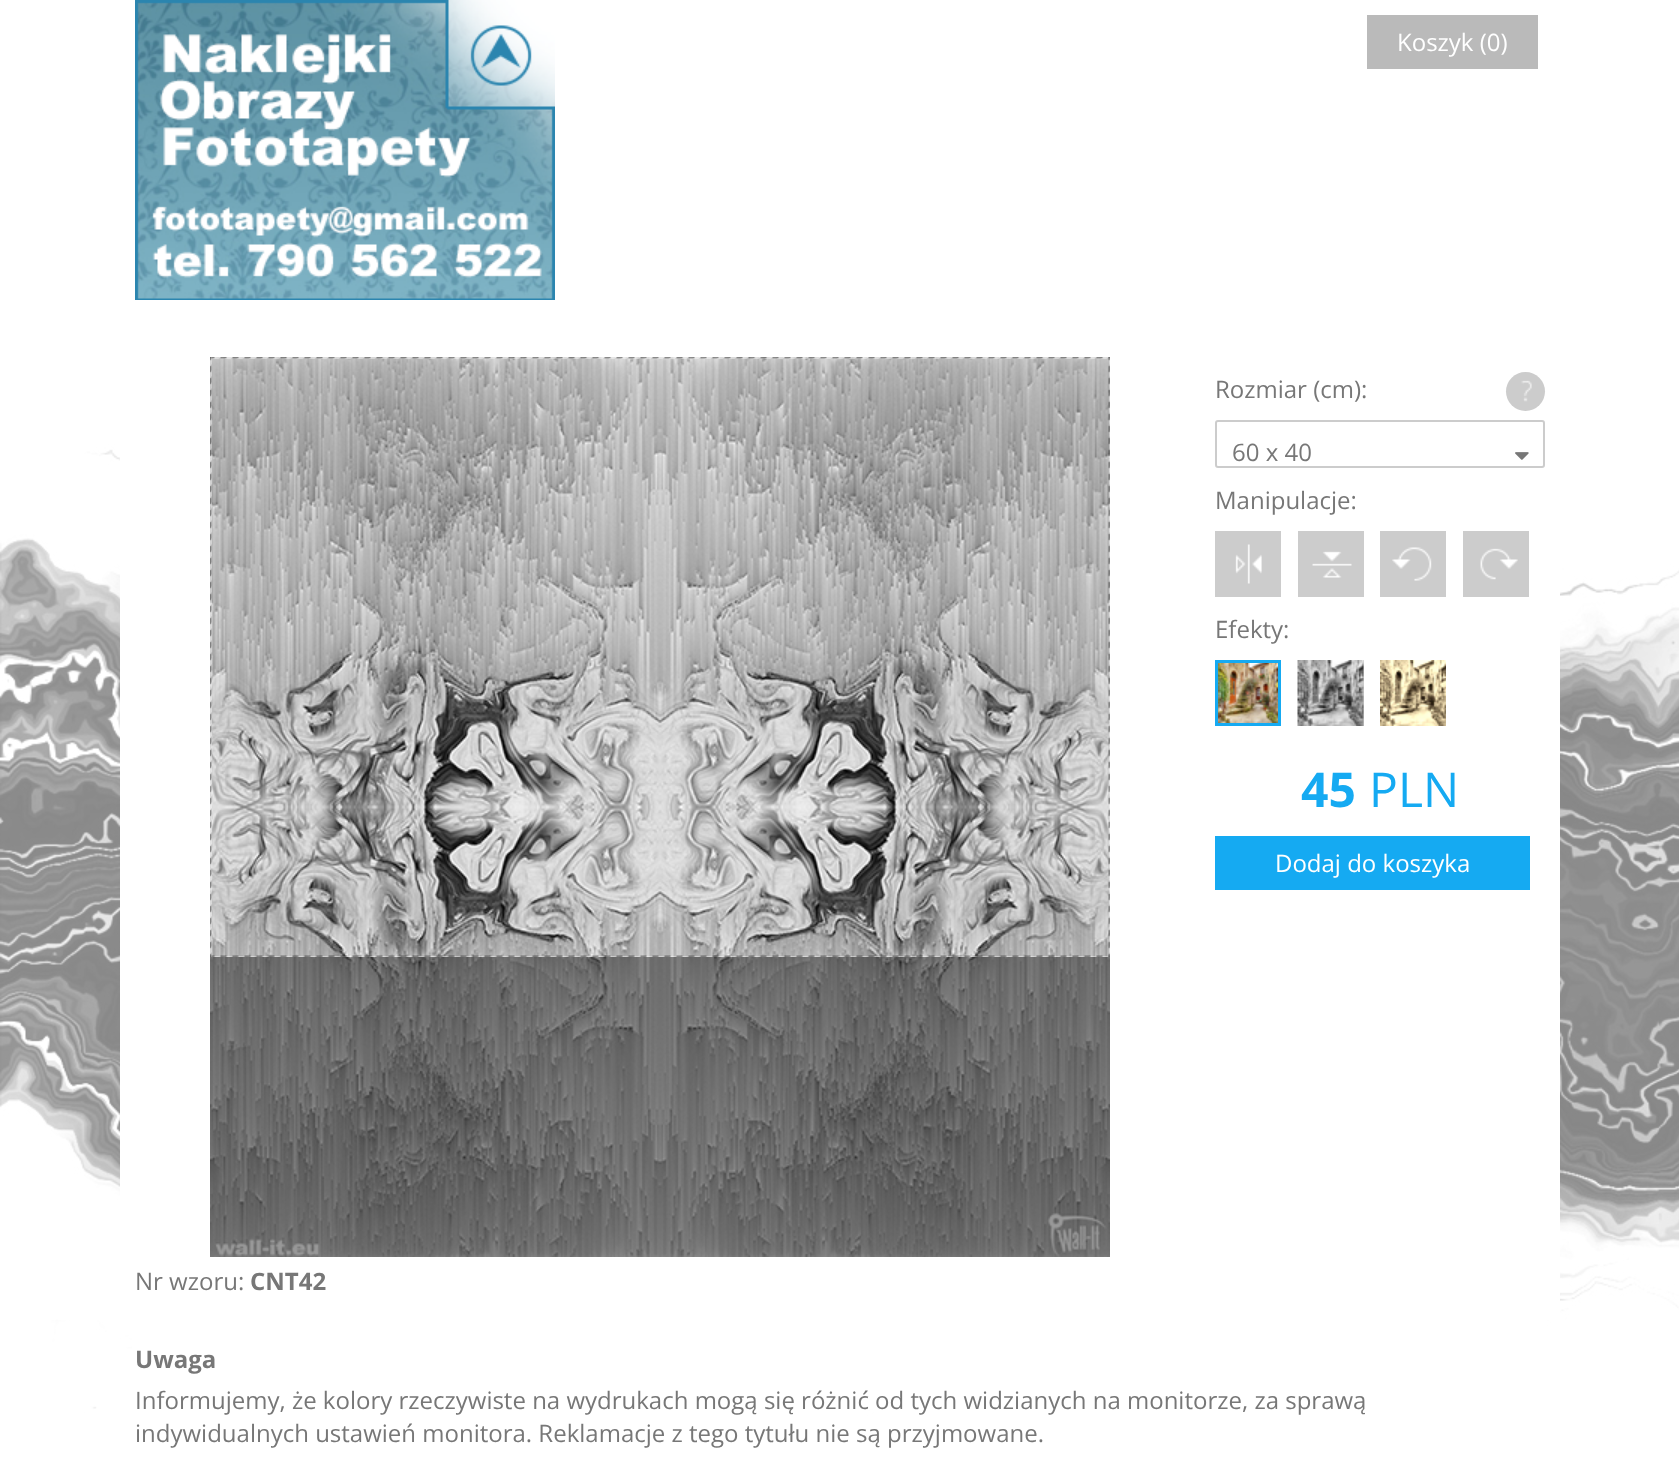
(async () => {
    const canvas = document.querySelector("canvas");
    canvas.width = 1679;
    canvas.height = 1462;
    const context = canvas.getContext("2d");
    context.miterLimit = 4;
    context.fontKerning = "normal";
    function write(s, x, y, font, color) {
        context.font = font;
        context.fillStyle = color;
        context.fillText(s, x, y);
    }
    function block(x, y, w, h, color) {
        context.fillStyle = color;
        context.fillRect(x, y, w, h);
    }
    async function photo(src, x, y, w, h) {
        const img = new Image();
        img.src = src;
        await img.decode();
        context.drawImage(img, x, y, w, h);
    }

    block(0, 0, 1679, 1462, "rgb(255, 255, 255)");
    await photo("media/1.png", 0, 0, 1679, 1462);
    await photo("media/2.png", 135, 0, 420, 300);
    block(1367, 15, 171, 54, "rgb(186, 186, 186)");
    write("Koszyk (0)", 1397, 51, "24px Open Sans", "rgb(255, 255, 255)");
    block(120, 449, 1440, 871, "rgb(255, 255, 255)");
    write("Rozmiar (cm):", 1215, 398, "24px Open Sans", "rgb(119, 119, 119)");
    context.fillStyle = "rgb(204, 204, 204)";
    context.beginPath();
    context.arc(1525.5, 391.5, 19.5, 0, Math.PI * 2);
    context.fill();
    await photo("media/3.png", 1521, 380, 11, 22);
    context.beginPath();
    context.roundRect(1216, 421, 328, 46, 2);
    context.strokeStyle = "rgb(204, 204, 204)";
    context.lineWidth = 2;
    context.stroke();
    write("60 x 40", 1232, 461, "24px Open Sans", "rgb(119, 119, 119)");
    await photo("media/4.png", 1515, 452, 14, 8);
    write("Manipulacje:", 1215, 509, "24px Open Sans", "rgb(119, 119, 119)");
    block(1215, 531, 66, 66, "rgb(204, 204, 204)");
    await photo("media/5.png", 1235, 544, 27, 40);
    block(1298, 531, 66, 66, "rgb(204, 204, 204)");
    await photo("media/6.png", 1312, 551, 40, 27);
    block(1380, 531, 66, 66, "rgb(204, 204, 204)");
    await photo("media/7.png", 1392, 547, 40, 34);
    block(1463, 531, 66, 66, "rgb(204, 204, 204)");
    await photo("media/8.png", 1480, 548, 38, 32);
    write("Efekty:", 1215, 638, "24px Open Sans", "rgb(119, 119, 119)");
    await photo("media/9.png", 1218, 663, 60, 60);
    context.strokeStyle = "rgb(21, 170, 242)";
    context.lineWidth = 3;
    context.strokeRect(1216.5, 661.5, 63, 63);
    block(1363, 660, 1, 66, "rgb(204, 204, 204)");
    await photo("media/10.png", 1297, 660, 67, 66);
    await photo("media/11.png", 1380, 660, 66, 66);
    write("45", 1301, 807, "bold 48px Open Sans", "rgb(21, 170, 242)");
    write("PLN", 1369, 807, "48px Open Sans", "rgb(21, 170, 242)");
    block(1215, 836, 315, 54, "rgb(21, 170, 242)");
    write("Dodaj do koszyka", 1275, 872, "24px Open Sans", "rgb(255, 255, 255)");
    block(210, 957, 900, 300, "rgb(0, 0, 0)");
    await photo("media/12.png", 210, 357, 900, 600);
    block(210, 357, 900, 2, "rgba(255, 255, 255, 0.4)");
    await photo("media/13.png", 210, 357, 900, 2);
    block(210, 956, 900, 1, "rgba(255, 255, 255, 0.4)");
    await photo("media/16.png", 210, 955, 900, 2);
    block(210, 357, 2, 600, "rgba(255, 255, 255, 0.4)");
    await photo("media/14.png", 210, 357, 2, 600);
    block(1109, 357, 1, 600, "rgba(255, 255, 255, 0.4)");
    await photo("media/15.png", 1108, 357, 2, 600);
    await photo("media/17.png", 210, 957, 900, 300);
    write("Nr wzoru:", 135, 1290, "24px Open Sans", "rgb(119, 119, 119)");
    write("CNT42", 250, 1290, "bold 24px Open Sans", "rgb(119, 119, 119)");
    block(132, 1320, 1415, 89, "rgb(255, 255, 255)");
    write("Uwaga", 135, 1368, "bold 24px Open Sans", "rgb(119, 119, 119)");
    write("Informujemy, że kolory rzeczywiste na wydrukach mogą się różnić od tych widzianych na monitorze, za sprawą", 135, 1409, "24px Open Sans", "rgb(119, 119, 119)");
    write("indywidualnych ustawień monitora. Reklamacje z tego tytułu nie są przyjmowane.", 135, 1442, "24px Open Sans", "rgb(119, 119, 119)");
})();
